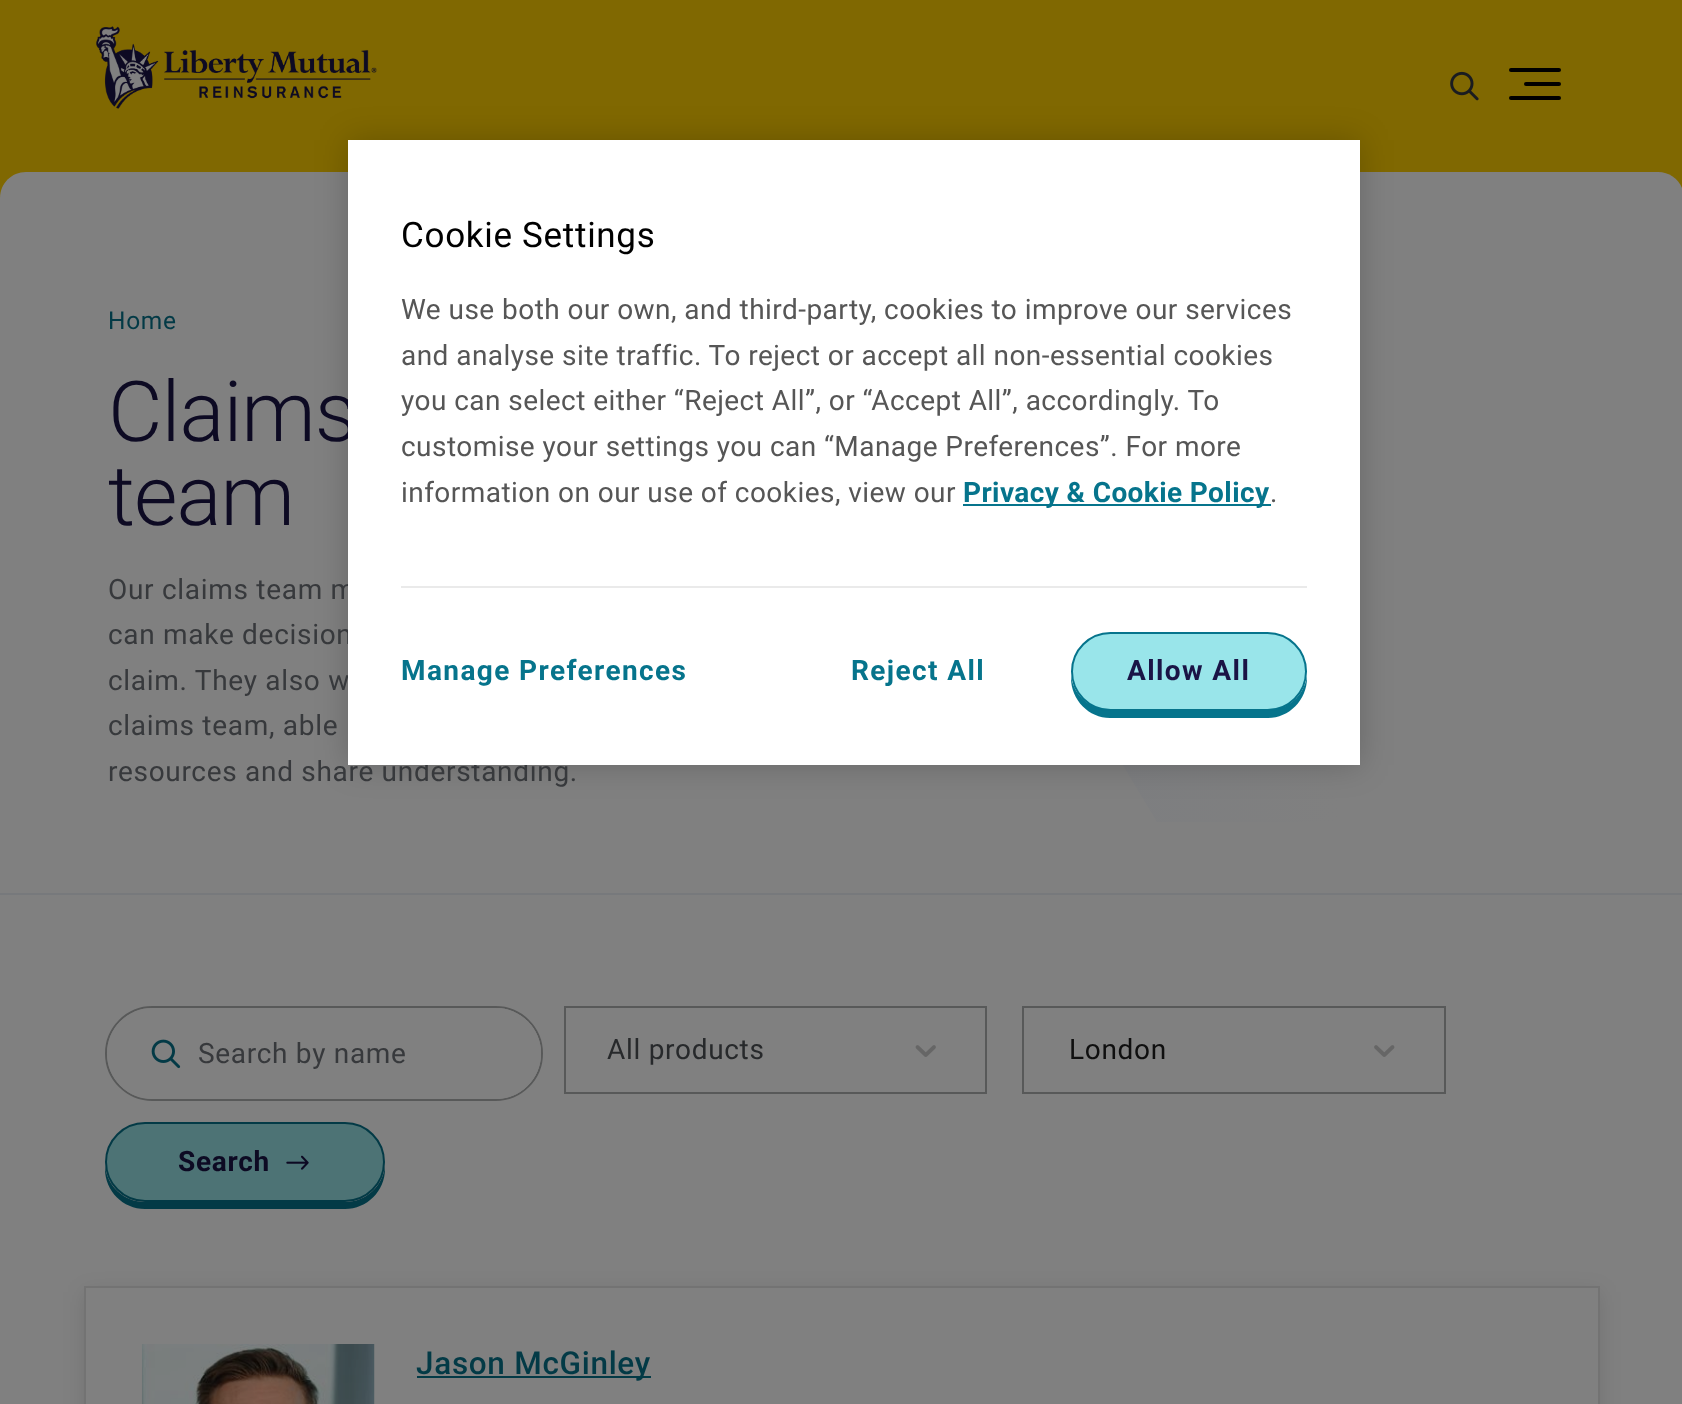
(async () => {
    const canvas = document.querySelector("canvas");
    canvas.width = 1682;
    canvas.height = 1404;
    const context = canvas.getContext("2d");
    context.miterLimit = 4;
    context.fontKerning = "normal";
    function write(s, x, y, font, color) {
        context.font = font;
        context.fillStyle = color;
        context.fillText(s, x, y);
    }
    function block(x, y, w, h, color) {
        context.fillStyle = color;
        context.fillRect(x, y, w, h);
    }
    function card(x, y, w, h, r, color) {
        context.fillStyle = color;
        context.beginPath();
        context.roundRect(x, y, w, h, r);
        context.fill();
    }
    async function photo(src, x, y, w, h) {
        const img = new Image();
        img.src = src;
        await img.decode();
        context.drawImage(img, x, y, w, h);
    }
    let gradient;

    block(0, 0, 1682, 1404, "rgb(128, 128, 128)");
    block(0, 0, 1682, 198, "rgb(128, 104, 1)");
    await photo("media/1.png", 96, 26, 281, 83);
    context.fillStyle = "rgb(128, 128, 128)";
    context.beginPath();
    context.moveTo(26, 172);
    context.lineTo(1658, 172);
    context.bezierCurveTo(1672.5, 172, 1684, 183.5, 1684, 198);
    context.lineTo(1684, 228);
    context.lineTo(0, 228);
    context.lineTo(0, 198);
    context.bezierCurveTo(0, 183.5, 11.5, 172, 26, 172);
    context.closePath();
    context.fill();
    gradient = context.createLinearGradient(837, 554, 1579, 566);
    gradient.addColorStop(0.08, "rgb(122, 124, 128)");
    gradient.addColorStop(0.68, "rgb(128, 128, 128)");
    context.fillStyle = gradient;
    context.beginPath();
    context.moveTo(1575, 822);
    context.lineTo(1157, 822);
    context.lineTo(842, 298);
    context.lineTo(1575, 298);
    context.closePath();
    context.fill();
    context.fillStyle = "rgba(0, 0, 0, 0.2)";
    context.filter = "blur(16px)";
    context.beginPath();
    context.rect(348, 140, 1012, 625);
    context.fill();
    context.filter = "none";
    context.letterSpacing = "-1px";
    write("Claims", 108, 441, "300 84px Roboto", "rgb(13, 10, 35)");
    context.letterSpacing = "0.7px";
    write("Our claims team m", 108, 599, "28px Roboto", "rgb(55, 57, 60)");
    write("can make decision", 108, 644, "28px Roboto", "rgb(55, 57, 60)");
    write("claim. They also w", 108, 690, "28px Roboto", "rgb(55, 57, 60)");
    write("resources and share understanding.", 108, 781, "28px Roboto", "rgb(55, 57, 60)");
    block(348, 140, 1012, 625, "rgb(255, 255, 255)");
    write("Cookie Settings", 401, 247, "35px Roboto", "rgb(0, 0, 0)");
    block(401, 586, 906, 2, "rgb(234, 234, 234)");
    context.letterSpacing = "0.45px";
    write("We use both our own, and third-party, cookies to improve our services", 401, 319, "28px Roboto", "rgb(86, 86, 86)");
    write("and analyse site traffic. To reject or accept all non-essential cookies", 401, 365, "28px Roboto", "rgb(86, 86, 86)");
    write("you can select either “Reject All”, or “Accept All”, accordingly. To", 401, 410, "28px Roboto", "rgb(86, 86, 86)");
    write("customise your settings you can “Manage Preferences”. For more", 401, 456, "28px Roboto", "rgb(86, 86, 86)");
    write("information on our use of cookies, view our", 401, 502, "28px Roboto", "rgb(86, 86, 86)");
    block(963, 504, 308, 2, "rgb(6, 116, 140)");
    context.letterSpacing = "0.4px";
    write("Privacy & Cookie Policy", 963, 502, "bold 28px Roboto", "rgb(6, 116, 140)");
    context.letterSpacing = "0.45px";
    write(".", 1270, 502, "28px Roboto", "rgb(86, 86, 86)");
    context.letterSpacing = "1.4px";
    write("Manage Preferences", 401, 680, "bold 28px Roboto", "rgb(6, 116, 140)");
    write("Reject All", 851, 680, "bold 28px Roboto", "rgb(6, 116, 140)");
    context.beginPath();
    context.moveTo(1071, 675);
    context.lineTo(1071, 678);
    context.bezierCurveTo(1071, 700, 1089, 718, 1110, 718);
    context.lineTo(1268, 718);
    context.bezierCurveTo(1289, 718, 1307, 700, 1307, 678);
    context.lineTo(1307, 676);
    context.bezierCurveTo(1304, 696, 1288, 710, 1268, 710);
    context.lineTo(1110, 710);
    context.bezierCurveTo(1090, 710, 1073, 695, 1071, 675);
    context.closePath();
    context.fill();
    context.fillStyle = "rgb(153, 229, 234)";
    context.beginPath();
    context.roundRect(1072, 633, 234, 77, 38.5);
    context.fill();
    context.strokeStyle = "rgb(6, 116, 140)";
    context.lineWidth = 2;
    context.stroke();
    write("Allow All", 1127, 680, "bold 28px Roboto", "rgb(26, 20, 70)");
    await photo("media/2.png", 1450, 71, 29, 30);
    card(1509, 68, 52, 4, 2, "rgb(0, 0, 0)");
    card(1524, 82, 37, 4, 2, "rgb(0, 0, 0)");
    card(1509, 96, 52, 4, 2, "rgb(0, 0, 0)");
    block(0, 893, 1682, 2, "rgb(119, 121, 124)");
    context.letterSpacing = "0.7px";
    write("Home", 108, 329, "24.5px Roboto", "rgb(3, 58, 70)");
    context.letterSpacing = "-1px";
    write("team", 108, 525, "300 84px Roboto", "rgb(13, 10, 35)");
    context.letterSpacing = "0.7px";
    write("claims team, able", 108, 735, "28px Roboto", "rgb(55, 57, 60)");
    context.beginPath();
    context.roundRect(106, 1007, 436, 93, 46.5);
    context.strokeStyle = "rgb(88, 89, 89)";
    context.stroke();
    card(107, 1008, 434, 91, 45.5, "rgb(128, 128, 128)");
    await photo("media/3.png", 151, 1039, 30, 30);
    context.beginPath();
    context.roundRect(184, 1008, 357, 91, [0, 45.5, 45.5, 0]);
    context.fill();
    write("Search by name", 198, 1063, "28px Roboto", "rgb(55, 57, 60)");
    context.strokeRect(565, 1007, 421, 86);
    write("All products", 607, 1059, "28px Roboto", "rgb(39, 41, 43)");
    await photo("media/4.png", 915, 1045, 21, 12);
    context.strokeRect(1023, 1007, 422, 86);
    write("London", 1069, 1059, "28px Roboto", "rgb(15, 15, 15)");
    await photo("media/5.png", 1374, 1045, 21, 12);
    context.fillStyle = "rgb(3, 58, 70)";
    context.beginPath();
    context.moveTo(105, 1166);
    context.lineTo(105, 1169);
    context.bezierCurveTo(105, 1191, 123, 1209, 145, 1209);
    context.lineTo(345, 1209);
    context.bezierCurveTo(367, 1209, 385, 1191, 385, 1169);
    context.lineTo(385, 1166);
    context.bezierCurveTo(383, 1186, 366, 1202, 345, 1202);
    context.lineTo(145, 1202);
    context.bezierCurveTo(124, 1202, 107, 1186, 105, 1166);
    context.closePath();
    context.fill();
    context.fillStyle = "rgb(77, 115, 117)";
    context.beginPath();
    context.roundRect(106, 1123, 278, 78, 39);
    context.fill();
    context.strokeStyle = "rgb(3, 58, 70)";
    context.stroke();
    write("Search", 178, 1171, "bold 28px Roboto", "rgb(13, 10, 35)");
    await photo("media/6.png", 286, 1155, 23, 15);
    context.fillStyle = "rgba(0, 0, 0, 0.1)";
    context.filter = "blur(10.5px)";
    context.beginPath();
    context.rect(84, 1292, 1516, 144);
    context.fill();
    context.filter = "none";
    context.fillStyle = "rgb(128, 128, 128)";
    context.beginPath();
    context.rect(85, 1287, 1514, 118);
    context.fill();
    context.strokeStyle = "rgb(115, 115, 115)";
    context.stroke();
    await photo("media/7.png", 141, 1344, 234, 60);
    block(417, 1376, 234, 2, "rgb(3, 58, 70)");
    write("Jason McGinley", 416, 1374, "500 31.5px Roboto", "rgb(3, 58, 70)");
})();
